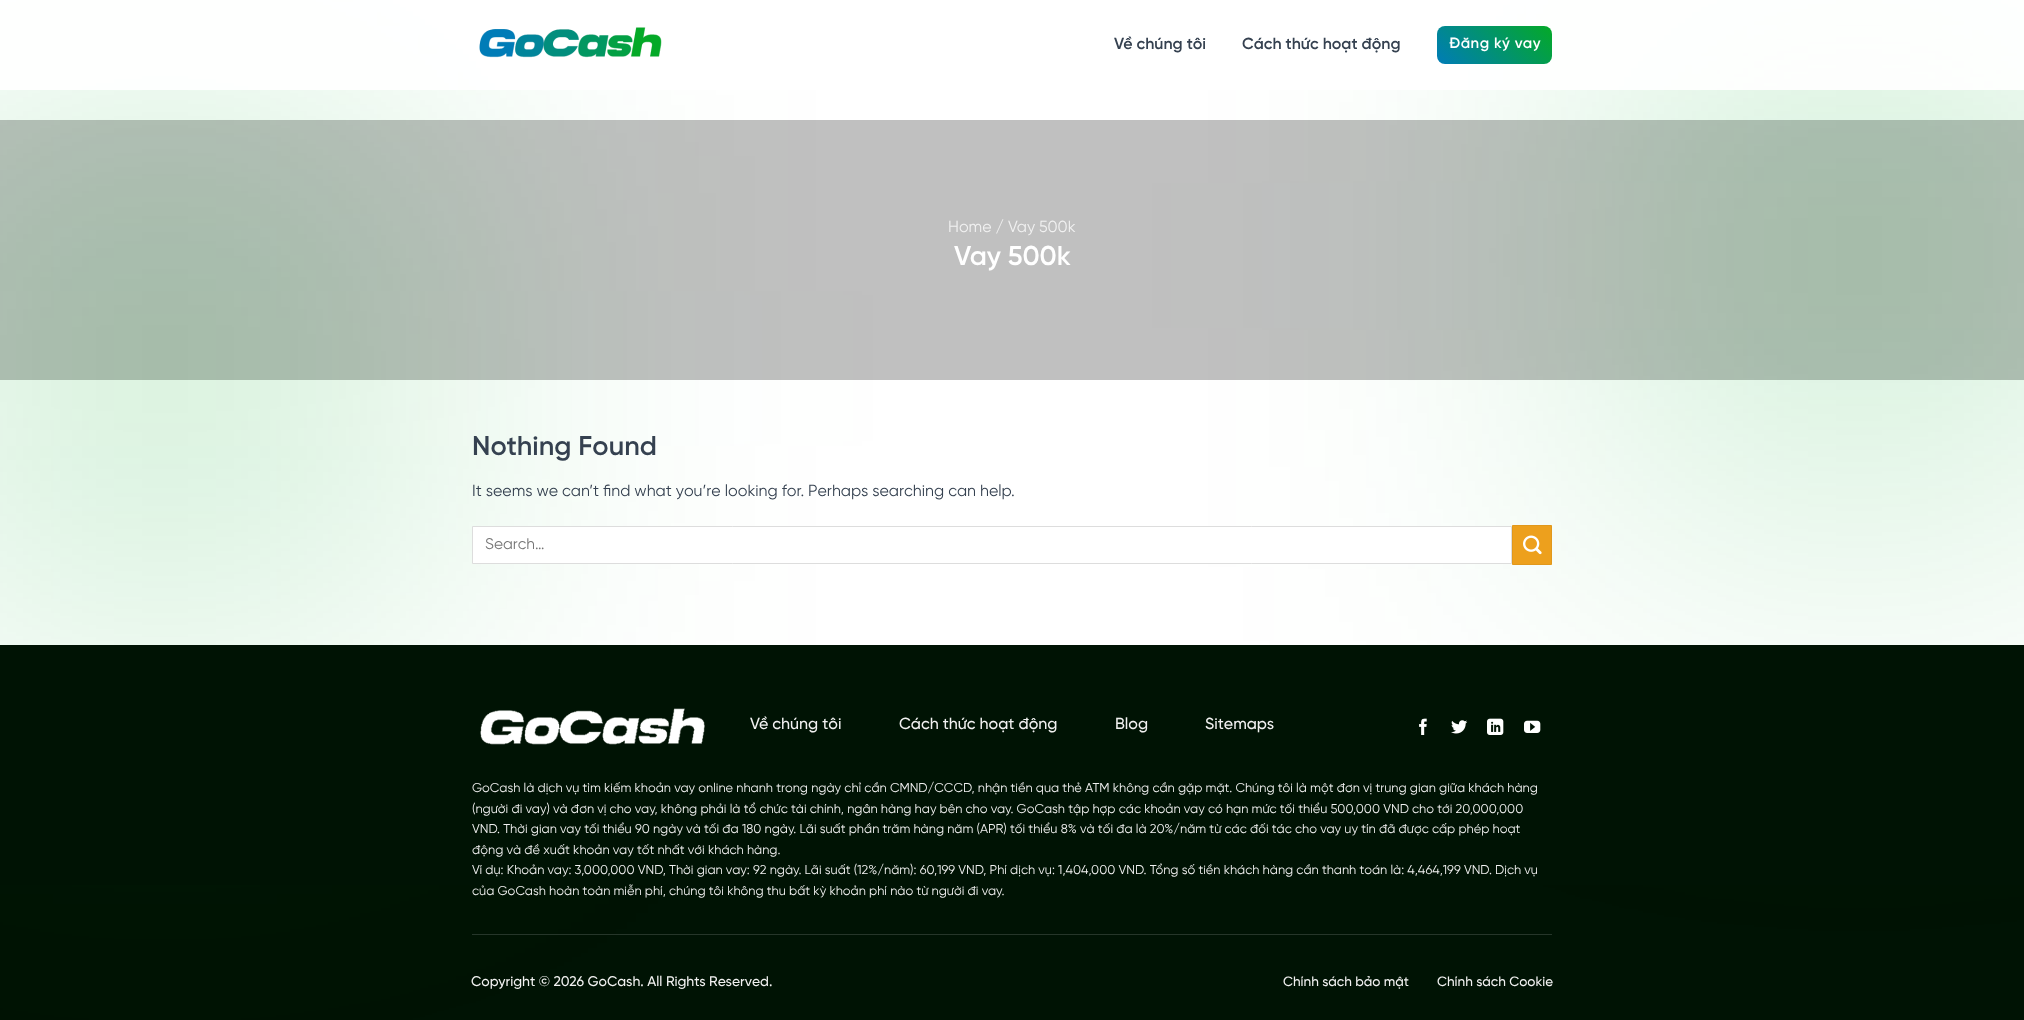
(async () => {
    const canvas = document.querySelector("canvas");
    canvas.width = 2024;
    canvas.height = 1020;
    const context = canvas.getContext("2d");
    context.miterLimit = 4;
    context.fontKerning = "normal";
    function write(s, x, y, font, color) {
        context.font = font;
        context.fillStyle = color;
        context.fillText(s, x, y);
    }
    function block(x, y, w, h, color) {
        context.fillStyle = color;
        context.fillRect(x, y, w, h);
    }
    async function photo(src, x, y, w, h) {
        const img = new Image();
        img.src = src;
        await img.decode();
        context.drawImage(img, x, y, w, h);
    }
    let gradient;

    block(0, 0, 2024, 1020, "rgb(0, 19, 4)");
    block(0, 0, 2024, 645, "rgb(255, 255, 255)");
    block(0, 120, 2024, 260, "rgb(192, 192, 192)");
    context.fillStyle = "rgba(4, 169, 39, 0.5)";
    context.filter = "blur(237px)";
    context.beginPath();
    context.rect(0, 203, 331, 331);
    context.fill();
    context.filter = "none";
    context.filter = "blur(237px)";
    context.beginPath();
    context.rect(1693, 90, 331, 331);
    context.fill();
    context.filter = "none";
    block(0, 0, 2024, 90, "rgba(255, 255, 255, 0.9)");
    await photo("media/1.png", 479, 27, 183, 31);
    write("Về chúng tôi", 1114, 49, "600 16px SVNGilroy", "rgb(53, 65, 80)");
    write("Cách thức hoạt động", 1242, 49, "600 16px SVNGilroy", "rgb(53, 65, 80)");
    gradient = context.createLinearGradient(1456, 83, 1533, 6.8);
    gradient.addColorStop(0, "rgb(0, 124, 183)");
    gradient.addColorStop(1, "rgb(4, 169, 39)");
    context.fillStyle = gradient;
    context.beginPath();
    context.roundRect(1437, 26, 115, 38, 8);
    context.fill();
    context.letterSpacing = "0.5px";
    write("Đăng ký vay", 1449, 48, "600 15px SVNGilroy", "rgb(255, 255, 255)");
    context.letterSpacing = "0px";
    write("Home / Vay 500k", 948, 232, "16px SVNGilroy", "rgb(241, 241, 241)");
    write("Vay 500k", 954, 265, "600 27.25px SVNGilroy", "rgb(255, 255, 255)");
    write("Nothing Found", 472, 455, "600 27.25px SVNGilroy", "rgb(53, 65, 80)");
    write("It seems we can’t find what you’re looking for. Perhaps searching can help.", 472, 496, "16px SVNGilroy", "rgb(53, 65, 80)");
    context.fillStyle = "rgb(255, 255, 255)";
    context.beginPath();
    context.rect(472.5, 526.5, 1039, 37);
    context.fill();
    context.strokeStyle = "rgb(221, 221, 221)";
    context.stroke();
    write("Search…", 485, 549, "15.5px SVNGilroy", "rgb(117, 117, 117)");
    context.fillStyle = "rgb(237, 160, 29)";
    context.beginPath();
    context.rect(1512.5, 525.5, 39, 39);
    context.fill();
    context.strokeStyle = "rgb(225, 152, 28)";
    context.stroke();
    await photo("media/2.png", 1523, 535, 19, 20);
    block(0, 645, 2024, 240, "rgb(0, 19, 4)");
    await photo("media/3.png", 480, 708, 225, 37);
    write("Về chúng tôi", 750, 729, "500 16px SVNGilroy", "rgb(241, 241, 241)");
    write("Cách thức hoạt động", 899, 729, "500 16px SVNGilroy", "rgb(241, 241, 241)");
    write("Blog", 1115, 729, "500 16px SVNGilroy", "rgb(241, 241, 241)");
    write("Sitemaps", 1205, 729, "500 16px SVNGilroy", "rgb(241, 241, 241)");
    await photo("media/4.png", 1419, 718, 8, 17);
    await photo("media/5.png", 1451, 720, 17, 14);
    await photo("media/6.png", 1487, 718, 17, 17);
    await photo("media/7.png", 1524, 720, 17, 13);
    write("GoCash là dịch vụ tìm kiếm khoản vay online nhanh trong ngày chỉ cần CMND/CCCD, nhận tiền qua thẻ ATM không cần gặp mặt. Chúng tôi là một đơn vị trung gian giữa khách hàng", 472, 792, "12.8px SVNGilroy", "rgb(241, 241, 241)");
    write("(người đi vay) và đơn vị cho vay, không phải là tổ chức tài chính, ngân hàng hay bên cho vay. GoCash tập hợp các khoản vay có hạn mức tối thiểu 500,000 VND cho tới 20,000,000", 472, 813, "12.8px SVNGilroy", "rgb(241, 241, 241)");
    write("VND. Thời gian vay tối thiểu 90 ngày và tối đa 180 ngày. Lãi suất phần trăm hàng năm (APR) tối thiểu 8% và tối đa là 20%/năm từ các đối tác cho vay uy tín đã được cấp phép hoạt", 472, 833, "12.8px SVNGilroy", "rgb(241, 241, 241)");
    write("động và đề xuất khoản vay tốt nhất với khách hàng.", 472, 854, "12.8px SVNGilroy", "rgb(241, 241, 241)");
    write("Ví dụ: Khoản vay: 3,000,000 VND, Thời gian vay: 92 ngày. Lãi suất (12%/năm): 60,199 VND, Phí dịch vụ: 1,404,000 VND. Tổng số tiền khách hàng cần thanh toán là: 4,464,199 VND. Dịch vụ", 472, 874, "12.8px SVNGilroy", "rgb(241, 241, 241)");
    write("của GoCash hoàn toàn miễn phí, chúng tôi không thu bất kỳ khoản phí nào từ người đi vay.", 472, 895, "12.8px SVNGilroy", "rgb(241, 241, 241)");
    block(472, 934, 1080, 1, "rgb(38, 54, 42)");
    write("Copyright © 2026 GoCash. All Rights Reserved.", 471, 986, "500 14px SVNGilroy", "rgb(241, 241, 241)");
    write("Chính sách bảo mật", 1283, 986, "500 13.5px SVNGilroy", "rgb(241, 241, 241)");
    write("Chính sách Cookie", 1437, 986, "500 13.5px SVNGilroy", "rgb(241, 241, 241)");
})();
